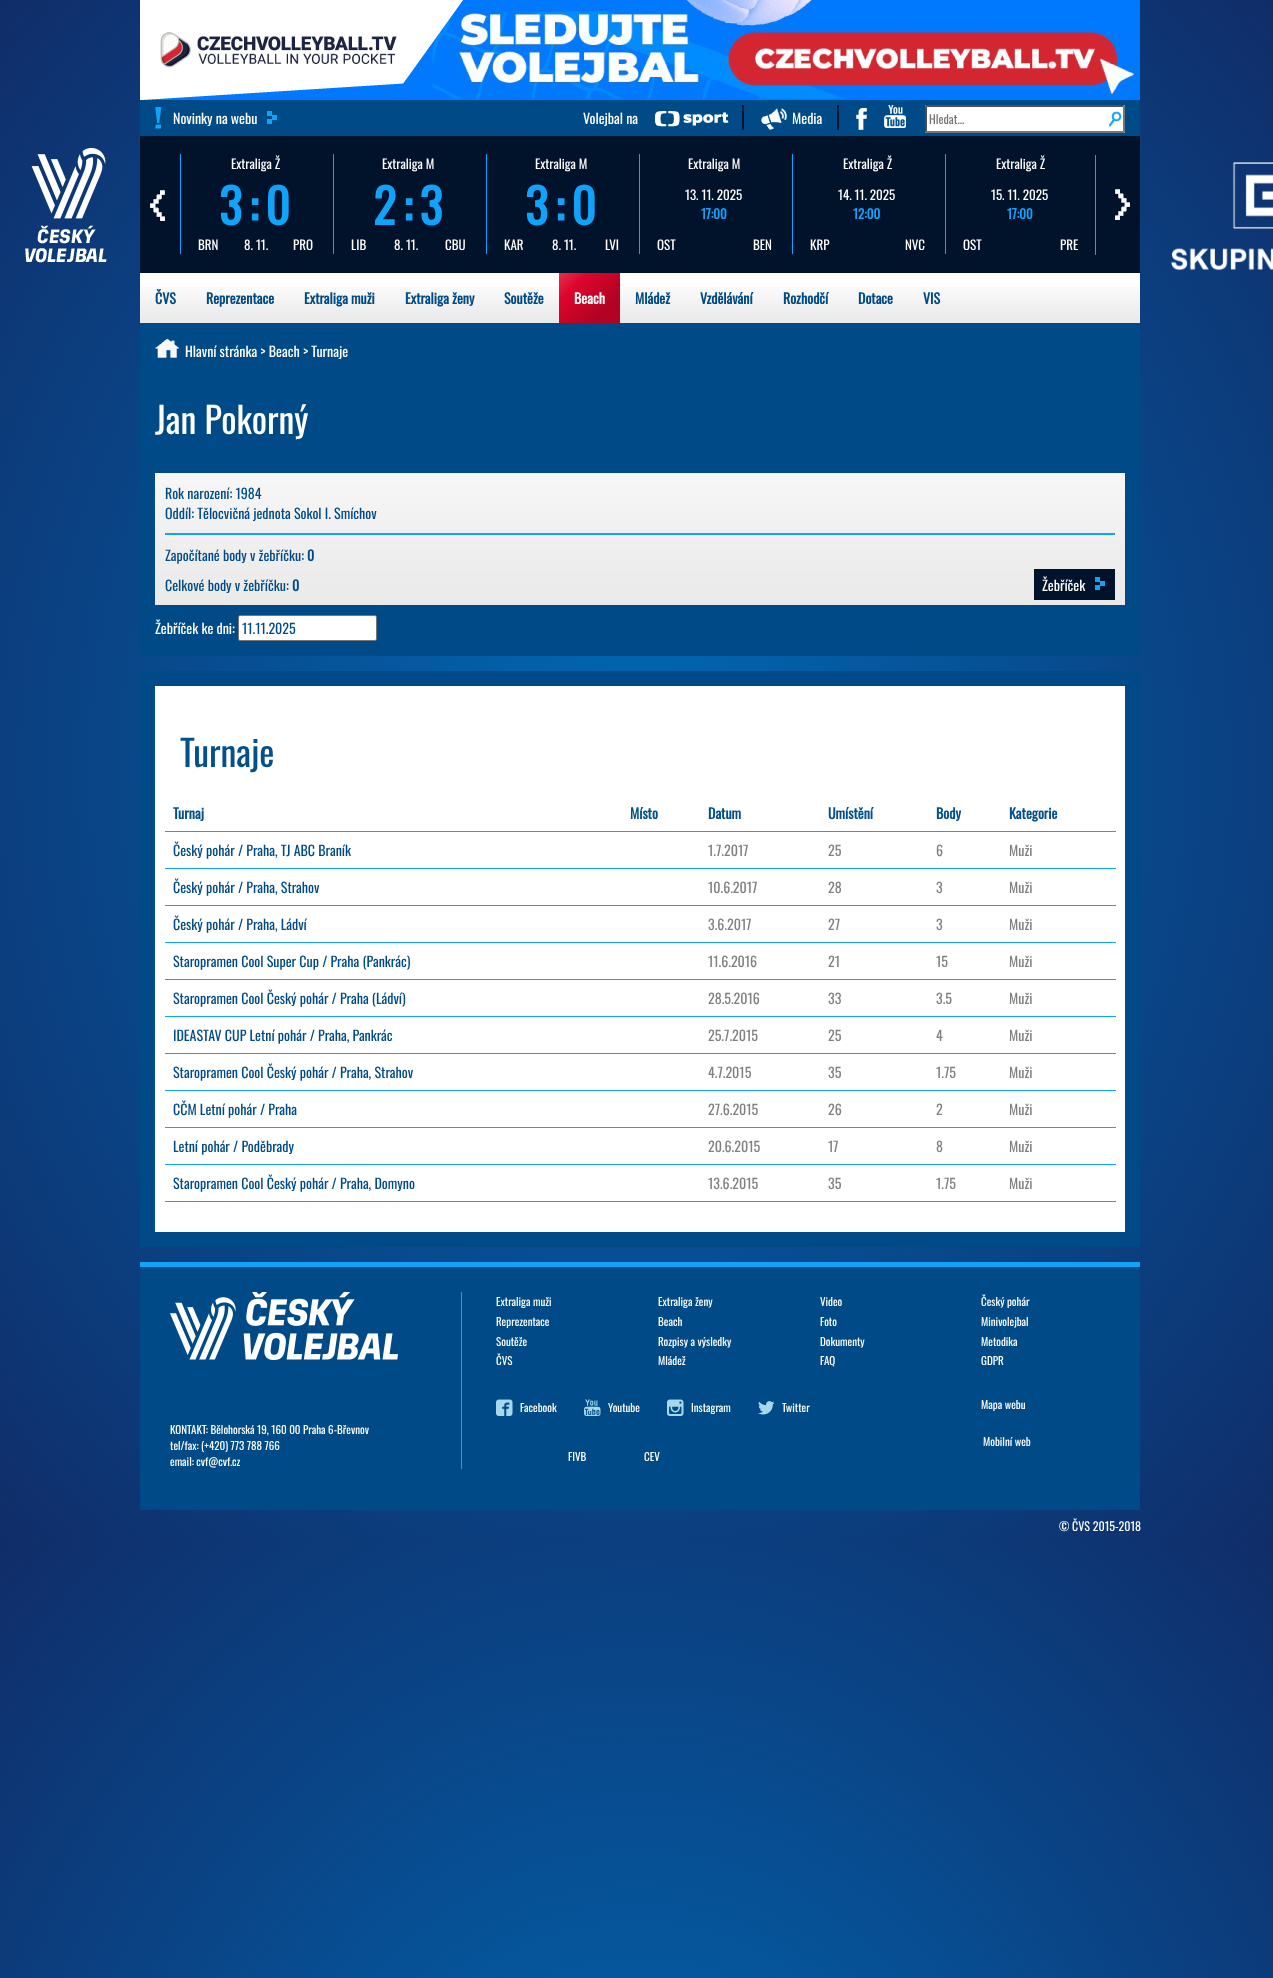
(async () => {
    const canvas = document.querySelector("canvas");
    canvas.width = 1273;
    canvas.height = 1978;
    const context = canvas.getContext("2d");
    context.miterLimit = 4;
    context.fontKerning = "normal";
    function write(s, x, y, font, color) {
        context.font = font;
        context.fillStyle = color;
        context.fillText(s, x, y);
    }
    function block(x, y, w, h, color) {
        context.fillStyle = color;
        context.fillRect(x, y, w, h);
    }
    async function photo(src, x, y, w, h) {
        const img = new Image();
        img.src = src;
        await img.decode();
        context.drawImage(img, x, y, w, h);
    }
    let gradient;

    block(0, 0, 1273, 1978, "rgb(255, 255, 255)");
    gradient = context.createRadialGradient(637, 636.61, 0, 637, 636.61, 900);
    gradient.addColorStop(0, "rgb(16, 45, 105)");
    gradient.addColorStop(0, "rgb(0, 105, 180)");
    gradient.addColorStop(1, "rgb(16, 45, 105)");
    gradient.addColorStop(1, "rgb(0, 105, 180)");
    context.fillStyle = gradient;
    context.beginPath();
    context.rect(0, 0, 1273, 1542);
    context.save();
    context.clip();
    context.scale(1, 1090 / 900);
    context.fillRect(0, 0, 1273, 1634);
    context.restore();
    gradient = context.createRadialGradient(637, 1909.82, 0, 637, 1909.82, 900);
    gradient.addColorStop(0, "rgb(16, 45, 105)");
    gradient.addColorStop(0, "rgb(0, 105, 180)");
    gradient.addColorStop(1, "rgb(16, 45, 105)");
    gradient.addColorStop(1, "rgb(0, 105, 180)");
    context.fillStyle = gradient;
    context.beginPath();
    context.rect(0, 1542, 1273, 436);
    context.save();
    context.clip();
    context.scale(1, 1090 / 900);
    context.fillRect(0, 0, 1273, 1634);
    context.restore();
    await photo("media/1.png", 140, 0, 1000, 100);
    block(140, 100, 1000, 36, "rgb(0, 75, 135)");
    await photo("media/2.png", 155, 107, 7, 22);
    write("Novinky na webu", 173, 124, "14px Oswald", "rgb(255, 255, 255)");
    await photo("media/3.png", 267, 111, 10, 13);
    write("Volejbal na", 583, 124, "14px Oswald", "rgb(255, 255, 255)");
    block(742, 105, 2, 25, "rgb(1, 18, 43)");
    await photo("media/4.png", 655, 111, 74, 16);
    await photo("media/5.png", 761, 108, 26, 22);
    write("Media", 792, 124, "14px Oswald", "rgb(255, 255, 255)");
    block(837, 105, 2, 25, "rgb(1, 18, 43)");
    await photo("media/6.png", 856, 108, 11, 22);
    await photo("media/7.png", 884, 105, 22, 23);
    block(925, 105, 200, 28, "rgb(255, 255, 255)");
    await photo("media/8.png", 1109, 111, 13, 16);
    context.fillStyle = "rgb(79, 79, 79)";
    context.beginPath();
    context.moveTo(925, 105);
    context.lineTo(1125, 105);
    context.lineTo(1123, 107);
    context.lineTo(927, 107);
    context.closePath();
    context.fill();
    context.fillStyle = "rgb(118, 118, 118)";
    context.beginPath();
    context.moveTo(1125, 105);
    context.lineTo(1125, 133);
    context.lineTo(1123, 131);
    context.lineTo(1123, 107);
    context.closePath();
    context.fill();
    context.beginPath();
    context.moveTo(1125, 133);
    context.lineTo(925, 133);
    context.lineTo(927, 131);
    context.lineTo(1123, 131);
    context.closePath();
    context.fill();
    context.fillStyle = "rgb(79, 79, 79)";
    context.beginPath();
    context.moveTo(925, 133);
    context.lineTo(925, 105);
    context.lineTo(927, 107);
    context.lineTo(927, 131);
    context.closePath();
    context.fill();
    write("Hledat...", 929, 124, "12px Oswald", "rgb(117, 117, 117)");
    await photo("media/9.png", 25, 148, 82, 115);
    block(140, 136, 1000, 137, "rgb(1, 18, 43)");
    await photo("media/10.png", 150, 190, 15, 31);
    block(180, 154, 1, 100, "rgb(16, 164, 249)");
    write("Extraliga Ž", 231, 169, "13px Oswald", "rgb(255, 255, 255)");
    context.letterSpacing = "7px";
    write("3:0", 219, 225, "bold 48px Oswald", "rgb(16, 163, 249)");
    context.letterSpacing = "0px";
    write("BRN", 198, 250, "13px Oswald", "rgb(255, 255, 255)");
    write("8. 11.", 244, 250, "13px Oswald", "rgb(255, 255, 255)");
    write("PRO", 293, 250, "13px Oswald", "rgb(255, 255, 255)");
    block(333, 154, 1, 100, "rgb(16, 164, 249)");
    write("Extraliga M", 382, 169, "13px Oswald", "rgb(255, 255, 255)");
    context.letterSpacing = "7px";
    write("2:3", 373, 225, "bold 48px Oswald", "rgb(16, 163, 249)");
    context.letterSpacing = "0px";
    write("LIB", 351, 250, "13px Oswald", "rgb(255, 255, 255)");
    write("8. 11.", 394, 250, "13px Oswald", "rgb(255, 255, 255)");
    write("CBU", 445, 250, "13px Oswald", "rgb(255, 255, 255)");
    block(486, 154, 1, 100, "rgb(16, 164, 249)");
    write("Extraliga M", 535, 169, "13px Oswald", "rgb(255, 255, 255)");
    context.letterSpacing = "7px";
    write("3:0", 525, 225, "bold 48px Oswald", "rgb(16, 163, 249)");
    context.letterSpacing = "0px";
    write("KAR", 504, 250, "13px Oswald", "rgb(255, 255, 255)");
    write("8. 11.", 552, 250, "13px Oswald", "rgb(255, 255, 255)");
    write("LVI", 605, 250, "13px Oswald", "rgb(255, 255, 255)");
    block(639, 154, 1, 100, "rgb(16, 164, 249)");
    write("Extraliga M", 688, 169, "13px Oswald", "rgb(255, 255, 255)");
    write("13. 11. 2025", 685, 200, "13px Oswald", "rgb(255, 255, 255)");
    write("17:00", 701, 219, "bold 13px Oswald", "rgb(16, 163, 249)");
    write("OST", 657, 250, "13px Oswald", "rgb(255, 255, 255)");
    write("BEN", 753, 250, "13px Oswald", "rgb(255, 255, 255)");
    block(792, 154, 1, 100, "rgb(16, 164, 249)");
    write("Extraliga Ž", 843, 169, "13px Oswald", "rgb(255, 255, 255)");
    write("14. 11. 2025", 838, 200, "13px Oswald", "rgb(255, 255, 255)");
    write("12:00", 853, 219, "bold 13px Oswald", "rgb(16, 163, 249)");
    write("KRP", 810, 250, "13px Oswald", "rgb(255, 255, 255)");
    write("NVC", 905, 250, "13px Oswald", "rgb(255, 255, 255)");
    block(945, 154, 1, 100, "rgb(16, 164, 249)");
    write("Extraliga Ž", 996, 169, "13px Oswald", "rgb(255, 255, 255)");
    write("15. 11. 2025", 991, 200, "13px Oswald", "rgb(255, 255, 255)");
    write("17:00", 1007, 219, "bold 13px Oswald", "rgb(16, 163, 249)");
    write("OST", 963, 250, "13px Oswald", "rgb(255, 255, 255)");
    write("PRE", 1060, 250, "13px Oswald", "rgb(255, 255, 255)");
    block(1095, 155, 1, 100, "rgb(16, 164, 249)");
    await photo("media/11.png", 1115, 189, 15, 31);
    await photo("media/12.png", 1171, 162, 102, 109);
    block(140, 273, 1000, 14, "rgb(255, 255, 255)");
    await photo("media/13.png", 955, 287, 185, 36);
    await photo("media/14.png", 140, 287, 51, 36);
    write("ČVS", 155, 304, "bold 14px Oswald", "rgb(0, 75, 135)");
    await photo("media/15.png", 191, 287, 98, 36);
    write("Reprezentace", 206, 304, "bold 14px Oswald", "rgb(0, 75, 135)");
    await photo("media/16.png", 289, 287, 101, 36);
    write("Extraliga muži", 304, 304, "bold 14px Oswald", "rgb(0, 75, 135)");
    await photo("media/17.png", 390, 287, 99, 36);
    write("Extraliga ženy", 405, 304, "bold 14px Oswald", "rgb(0, 75, 135)");
    await photo("media/18.png", 489, 287, 70, 36);
    write("Soutěže", 504, 304, "bold 14px Oswald", "rgb(0, 75, 135)");
    gradient = context.createLinearGradient(562, 270, 617, 326);
    gradient.addColorStop(0, "rgb(248, 80, 50)");
    gradient.addColorStop(0, "rgb(227, 48, 80)");
    gradient.addColorStop(0.26, "rgb(221, 5, 44)");
    gradient.addColorStop(0.72, "rgb(179, 3, 35)");
    gradient.addColorStop(1, "rgb(179, 3, 35)");
    context.fillStyle = gradient;
    context.fillRect(559, 273, 61, 50);
    write("Beach", 574, 304, "bold 14px Oswald", "rgb(255, 255, 255)");
    await photo("media/19.png", 620, 287, 65, 36);
    write("Mládež", 635, 304, "bold 14px Oswald", "rgb(0, 75, 135)");
    await photo("media/20.png", 685, 287, 83, 36);
    write("Vzdělávání", 700, 304, "bold 14px Oswald", "rgb(0, 75, 135)");
    await photo("media/21.png", 768, 287, 75, 36);
    write("Rozhodčí", 783, 304, "bold 14px Oswald", "rgb(0, 75, 135)");
    await photo("media/19.png", 843, 287, 65, 36);
    write("Dotace", 858, 304, "bold 14px Oswald", "rgb(0, 75, 135)");
    await photo("media/22.png", 908, 287, 47, 36);
    write("VIS", 923, 304, "bold 14px Oswald", "rgb(0, 75, 135)");
    block(140, 323, 1000, 333, "rgb(0, 75, 135)");
    await photo("media/23.png", 155, 339, 24, 19);
    write("Hlavní stránka > Beach > Turnaje", 185, 357, "14px Oswald", "rgb(255, 255, 255)");
    write("Jan Pokorný", 155, 434, "36px Oswald", "rgb(255, 255, 255)");
    await photo("media/24.png", 155, 473, 970, 132);
    write("Rok narození: 1984", 165, 499, "14px Oswald", "rgb(0, 75, 135)");
    write("Oddíl: Tělocvičná jednota Sokol I. Smíchov", 165, 519, "14px Oswald", "rgb(0, 75, 135)");
    block(165, 533, 950, 2, "rgb(16, 163, 249)");
    write("Započítané body v žebříčku:", 165, 561, "14px Oswald", "rgb(0, 75, 135)");
    write("0", 307, 561, "bold 14px Oswald", "rgb(0, 75, 135)");
    write("Celkové body v žebříčku:", 165, 591, "14px Oswald", "rgb(0, 75, 135)");
    write("0", 292, 591, "bold 14px Oswald", "rgb(0, 75, 135)");
    block(1034, 569, 81, 31, "rgb(1, 18, 43)");
    write("Žebříček", 1042, 591, "14px Oswald", "rgb(255, 255, 255)");
    await photo("media/25.png", 1095, 577, 10, 13);
    write("Žebříček ke dni:", 155, 634, "14px Oswald", "rgb(255, 255, 255)");
    context.beginPath();
    context.roundRect(238.5, 615.5, 138, 25, 1.5);
    context.fill();
    context.strokeStyle = "rgb(118, 118, 118)";
    context.stroke();
    write("11.11.2025", 242, 634, "14px Oswald", "rgb(0, 75, 135)");
    block(140, 671, 1000, 576, "rgb(0, 75, 135)");
    block(155, 686, 970, 546, "rgb(255, 255, 255)");
    write("Turnaje", 180, 767, "36px Oswald", "rgb(3, 80, 141)");
    write("Turnaj", 173, 819, "bold 14px Oswald", "rgb(3, 80, 141)");
    write("Místo", 630, 819, "bold 14px Oswald", "rgb(3, 80, 141)");
    write("Datum", 708, 819, "bold 14px Oswald", "rgb(3, 80, 141)");
    write("Umístění", 828, 819, "bold 14px Oswald", "rgb(3, 80, 141)");
    write("Body", 936, 819, "bold 14px Oswald", "rgb(3, 80, 141)");
    block(165, 831, 951, 1, "rgb(16, 163, 249)");
    write("Kategorie", 1009, 819, "bold 14px Oswald", "rgb(3, 80, 141)");
    write("Český pohár / Praha, TJ ABC Braník", 173, 856, "14px Oswald", "rgb(0, 75, 135)");
    write("1.7.2017", 708, 856, "14px Oswald", "rgb(128, 128, 128)");
    write("25", 828, 856, "14px Oswald", "rgb(128, 128, 128)");
    write("6", 936, 856, "14px Oswald", "rgb(128, 128, 128)");
    block(165, 868, 951, 1, "rgb(16, 163, 249)");
    write("Muži", 1009, 856, "14px Oswald", "rgb(128, 128, 128)");
    write("Český pohár / Praha, Strahov", 173, 893, "14px Oswald", "rgb(0, 75, 135)");
    write("10.6.2017", 708, 893, "14px Oswald", "rgb(128, 128, 128)");
    write("28", 828, 893, "14px Oswald", "rgb(128, 128, 128)");
    write("3", 936, 893, "14px Oswald", "rgb(128, 128, 128)");
    block(165, 905, 951, 1, "rgb(16, 163, 249)");
    write("Muži", 1009, 893, "14px Oswald", "rgb(128, 128, 128)");
    write("Český pohár / Praha, Ládví", 173, 930, "14px Oswald", "rgb(0, 75, 135)");
    write("3.6.2017", 708, 930, "14px Oswald", "rgb(128, 128, 128)");
    write("27", 828, 930, "14px Oswald", "rgb(128, 128, 128)");
    write("3", 936, 930, "14px Oswald", "rgb(128, 128, 128)");
    block(165, 942, 951, 1, "rgb(16, 163, 249)");
    write("Muži", 1009, 930, "14px Oswald", "rgb(128, 128, 128)");
    write("Staropramen Cool Super Cup / Praha (Pankrác)", 173, 967, "14px Oswald", "rgb(0, 75, 135)");
    write("11.6.2016", 708, 967, "14px Oswald", "rgb(128, 128, 128)");
    write("21", 828, 967, "14px Oswald", "rgb(128, 128, 128)");
    write("15", 936, 967, "14px Oswald", "rgb(128, 128, 128)");
    block(165, 979, 951, 1, "rgb(16, 163, 249)");
    write("Muži", 1009, 967, "14px Oswald", "rgb(128, 128, 128)");
    write("Staropramen Cool Český pohár / Praha (Ládví)", 173, 1004, "14px Oswald", "rgb(0, 75, 135)");
    write("28.5.2016", 708, 1004, "14px Oswald", "rgb(128, 128, 128)");
    write("33", 828, 1004, "14px Oswald", "rgb(128, 128, 128)");
    write("3.5", 936, 1004, "14px Oswald", "rgb(128, 128, 128)");
    block(165, 1016, 951, 1, "rgb(16, 163, 249)");
    write("Muži", 1009, 1004, "14px Oswald", "rgb(128, 128, 128)");
    write("IDEASTAV CUP Letní pohár / Praha, Pankrác", 173, 1041, "14px Oswald", "rgb(0, 75, 135)");
    write("25.7.2015", 708, 1041, "14px Oswald", "rgb(128, 128, 128)");
    write("25", 828, 1041, "14px Oswald", "rgb(128, 128, 128)");
    write("4", 936, 1041, "14px Oswald", "rgb(128, 128, 128)");
    block(165, 1053, 951, 1, "rgb(16, 163, 249)");
    write("Muži", 1009, 1041, "14px Oswald", "rgb(128, 128, 128)");
    write("Staropramen Cool Český pohár / Praha, Strahov", 173, 1078, "14px Oswald", "rgb(0, 75, 135)");
    write("4.7.2015", 708, 1078, "14px Oswald", "rgb(128, 128, 128)");
    write("35", 828, 1078, "14px Oswald", "rgb(128, 128, 128)");
    write("1.75", 936, 1078, "14px Oswald", "rgb(128, 128, 128)");
    block(165, 1090, 951, 1, "rgb(16, 163, 249)");
    write("Muži", 1009, 1078, "14px Oswald", "rgb(128, 128, 128)");
    write("CČM Letní pohár / Praha", 173, 1115, "14px Oswald", "rgb(0, 75, 135)");
    write("27.6.2015", 708, 1115, "14px Oswald", "rgb(128, 128, 128)");
    write("26", 828, 1115, "14px Oswald", "rgb(128, 128, 128)");
    write("2", 936, 1115, "14px Oswald", "rgb(128, 128, 128)");
    block(165, 1127, 951, 1, "rgb(16, 163, 249)");
    write("Muži", 1009, 1115, "14px Oswald", "rgb(128, 128, 128)");
    write("Letní pohár / Poděbrady", 173, 1152, "14px Oswald", "rgb(0, 75, 135)");
    write("20.6.2015", 708, 1152, "14px Oswald", "rgb(128, 128, 128)");
    write("17", 828, 1152, "14px Oswald", "rgb(128, 128, 128)");
    write("8", 936, 1152, "14px Oswald", "rgb(128, 128, 128)");
    block(165, 1164, 951, 1, "rgb(16, 163, 249)");
    write("Muži", 1009, 1152, "14px Oswald", "rgb(128, 128, 128)");
    write("Staropramen Cool Český pohár / Praha, Domyno", 173, 1189, "14px Oswald", "rgb(0, 75, 135)");
    write("13.6.2015", 708, 1189, "14px Oswald", "rgb(128, 128, 128)");
    write("35", 828, 1189, "14px Oswald", "rgb(128, 128, 128)");
    write("1.75", 936, 1189, "14px Oswald", "rgb(128, 128, 128)");
    block(165, 1201, 951, 1, "rgb(16, 163, 249)");
    write("Muži", 1009, 1189, "14px Oswald", "rgb(128, 128, 128)");
    block(140, 1267, 1000, 243, "rgb(0, 75, 135)");
    block(140, 1262, 1000, 5, "rgb(16, 163, 249)");
    write("Extraliga muži", 496, 1306, "11px Oswald", "rgb(255, 255, 255)");
    write("Reprezentace", 496, 1326, "11px Oswald", "rgb(255, 255, 255)");
    write("Soutěže", 496, 1346, "11px Oswald", "rgb(255, 255, 255)");
    write("ČVS", 496, 1365, "11px Oswald", "rgb(255, 255, 255)");
    write("Extraliga ženy", 658, 1306, "11px Oswald", "rgb(255, 255, 255)");
    write("Beach", 658, 1326, "11px Oswald", "rgb(255, 255, 255)");
    write("Rozpisy a výsledky", 658, 1346, "11px Oswald", "rgb(255, 255, 255)");
    write("Mládež", 658, 1365, "11px Oswald", "rgb(255, 255, 255)");
    write("Video", 820, 1306, "11px Oswald", "rgb(255, 255, 255)");
    write("Foto", 820, 1326, "11px Oswald", "rgb(255, 255, 255)");
    write("Dokumenty", 820, 1346, "11px Oswald", "rgb(255, 255, 255)");
    write("FAQ", 820, 1365, "11px Oswald", "rgb(255, 255, 255)");
    write("Český pohár", 981, 1306, "11px Oswald", "rgb(255, 255, 255)");
    write("Minivolejbal", 981, 1326, "11px Oswald", "rgb(255, 255, 255)");
    write("Metodika", 981, 1346, "11px Oswald", "rgb(255, 255, 255)");
    write("GDPR", 981, 1365, "11px Oswald", "rgb(255, 255, 255)");
    block(461, 1292, 1, 177, "rgb(16, 163, 249)");
    await photo("media/26.png", 170, 1292, 228, 68);
    write("KONTAKT: Bělohorská 19, 160 00 Praha 6-Břevnov", 170, 1434, "11px Oswald", "rgb(255, 255, 255)");
    write("tel/fax: (+420) 773 788 766", 170, 1450, "11px Oswald", "rgb(255, 255, 255)");
    write("email: cvf@cvf.cz", 170, 1466, "11px Oswald", "rgb(255, 255, 255)");
    await photo("media/27.png", 496, 1399, 17, 17);
    write("Facebook", 520, 1412, "11px Oswald", "rgb(255, 255, 255)");
    await photo("media/28.png", 584, 1399, 17, 17);
    write("Youtube", 608, 1412, "11px Oswald", "rgb(255, 255, 255)");
    await photo("media/29.png", 667, 1399, 17, 17);
    write("Instagram", 691, 1412, "11px Oswald", "rgb(255, 255, 255)");
    await photo("media/30.png", 758, 1401, 17, 14);
    write("Twitter", 782, 1412, "11px Oswald", "rgb(255, 255, 255)");
    write("FIVB", 568, 1461, "11px Oswald", "rgb(255, 255, 255)");
    write("CEV", 644, 1461, "11px Oswald", "rgb(255, 255, 255)");
    write("Mapa webu", 981, 1409, "11px Oswald", "rgb(255, 255, 255)");
    write("Mobilní web", 983, 1446, "11px Oswald", "rgb(255, 255, 255)");
    write("© ČVS 2015-2018", 1059, 1531, "12px Oswald", "rgb(255, 255, 255)");
})();
